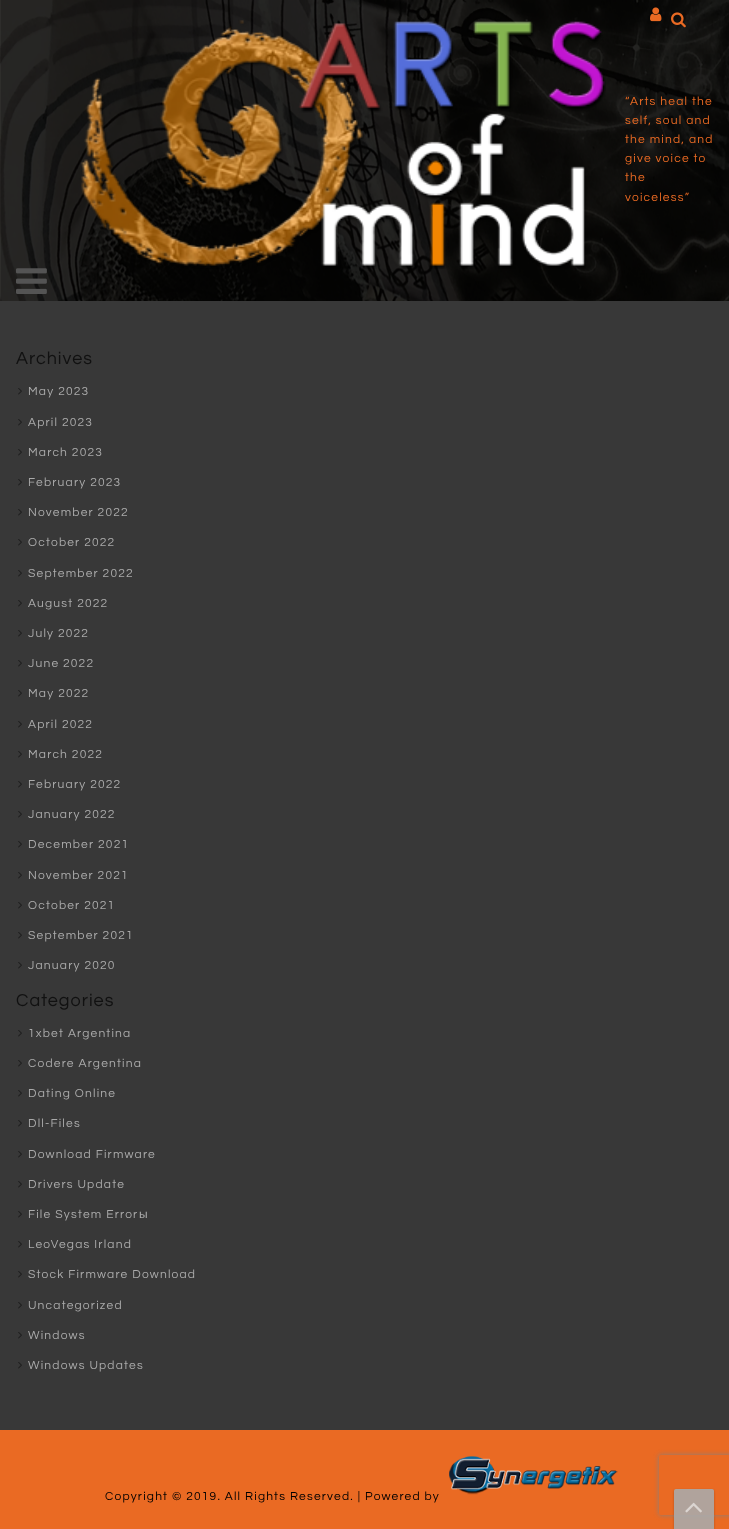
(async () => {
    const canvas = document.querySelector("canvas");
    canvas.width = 729;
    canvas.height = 1529;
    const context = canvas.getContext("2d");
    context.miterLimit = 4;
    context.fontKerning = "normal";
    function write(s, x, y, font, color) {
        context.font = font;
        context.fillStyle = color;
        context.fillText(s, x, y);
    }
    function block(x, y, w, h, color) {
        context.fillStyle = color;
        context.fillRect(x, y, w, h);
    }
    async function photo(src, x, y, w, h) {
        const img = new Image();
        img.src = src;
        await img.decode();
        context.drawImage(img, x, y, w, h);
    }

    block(0, 0, 729, 1529, "rgb(56, 56, 56)");
    context.fillStyle = "rgb(238, 238, 238)";
    context.filter = "blur(0.5px)";
    context.beginPath();
    context.rect(1, 2, 727, 299);
    context.fill();
    context.filter = "none";
    await photo("media/1.png", 0, 0, 729, 301);
    await photo("media/2.png", 650, 7, 12, 15);
    await photo("media/3.png", 671, 12, 15, 16);
    await photo("media/4.png", 81, 20, 525, 249);
    context.letterSpacing = "1.2px";
    write("“Arts heal the", 625, 105, "12px Questrial", "rgb(234, 106, 35)");
    write("self, soul and", 625, 124, "12px Questrial", "rgb(234, 106, 35)");
    write("the mind, and", 625, 143, "12px Questrial", "rgb(234, 106, 35)");
    write("give voice to", 625, 162, "12px Questrial", "rgb(234, 106, 35)");
    write("the", 625, 181, "12px Questrial", "rgb(234, 106, 35)");
    write("voiceless”", 625, 201, "12px Questrial", "rgb(234, 106, 35)");
    await photo("media/5.png", 16, 268, 31, 26);
    context.letterSpacing = "1px";
    write("Archives", 16, 364, "18px Questrial", "rgb(17, 17, 17)");
    await photo("media/6.png", 18, 388, 4, 7);
    context.letterSpacing = "1.2px";
    write("May 2023", 28, 395, "12px Questrial", "rgb(170, 170, 170)");
    await photo("media/6.png", 18, 419, 4, 7);
    write("April 2023", 28, 426, "12px Questrial", "rgb(170, 170, 170)");
    await photo("media/6.png", 18, 449, 4, 7);
    write("March 2023", 28, 456, "12px Questrial", "rgb(170, 170, 170)");
    await photo("media/6.png", 18, 479, 4, 7);
    write("February 2023", 28, 486, "12px Questrial", "rgb(170, 170, 170)");
    await photo("media/6.png", 18, 509, 4, 7);
    write("November 2022", 28, 516, "12px Questrial", "rgb(170, 170, 170)");
    await photo("media/6.png", 18, 539, 4, 7);
    write("October 2022", 28, 546, "12px Questrial", "rgb(170, 170, 170)");
    await photo("media/6.png", 18, 570, 4, 7);
    write("September 2022", 28, 577, "12px Questrial", "rgb(170, 170, 170)");
    await photo("media/6.png", 18, 600, 4, 7);
    write("August 2022", 28, 607, "12px Questrial", "rgb(170, 170, 170)");
    await photo("media/6.png", 18, 630, 4, 7);
    write("July 2022", 28, 637, "12px Questrial", "rgb(170, 170, 170)");
    await photo("media/6.png", 18, 660, 4, 7);
    write("June 2022", 28, 667, "12px Questrial", "rgb(170, 170, 170)");
    await photo("media/6.png", 18, 690, 4, 7);
    write("May 2022", 28, 697, "12px Questrial", "rgb(170, 170, 170)");
    await photo("media/6.png", 18, 721, 4, 7);
    write("April 2022", 28, 728, "12px Questrial", "rgb(170, 170, 170)");
    await photo("media/6.png", 18, 751, 4, 7);
    write("March 2022", 28, 758, "12px Questrial", "rgb(170, 170, 170)");
    await photo("media/6.png", 18, 781, 4, 7);
    write("February 2022", 28, 788, "12px Questrial", "rgb(170, 170, 170)");
    await photo("media/6.png", 18, 811, 4, 7);
    write("January 2022", 28, 818, "12px Questrial", "rgb(170, 170, 170)");
    await photo("media/6.png", 18, 841, 4, 7);
    write("December 2021", 28, 848, "12px Questrial", "rgb(170, 170, 170)");
    await photo("media/6.png", 18, 872, 4, 7);
    write("November 2021", 28, 879, "12px Questrial", "rgb(170, 170, 170)");
    await photo("media/6.png", 18, 902, 4, 7);
    write("October 2021", 28, 909, "12px Questrial", "rgb(170, 170, 170)");
    await photo("media/6.png", 18, 932, 4, 7);
    write("September 2021", 28, 939, "12px Questrial", "rgb(170, 170, 170)");
    await photo("media/6.png", 18, 962, 4, 7);
    write("January 2020", 28, 969, "12px Questrial", "rgb(170, 170, 170)");
    context.letterSpacing = "1px";
    write("Categories", 16, 1006, "18px Questrial", "rgb(17, 17, 17)");
    await photo("media/6.png", 18, 1030, 4, 7);
    context.letterSpacing = "1.2px";
    write("1xbet Argentina", 28, 1037, "12px Questrial", "rgb(170, 170, 170)");
    await photo("media/6.png", 18, 1060, 4, 7);
    write("Codere Argentina", 28, 1067, "12px Questrial", "rgb(170, 170, 170)");
    await photo("media/6.png", 18, 1090, 4, 7);
    write("Dating Online", 28, 1097, "12px Questrial", "rgb(170, 170, 170)");
    await photo("media/6.png", 18, 1120, 4, 7);
    write("Dll-Files", 28, 1127, "12px Questrial", "rgb(170, 170, 170)");
    await photo("media/6.png", 18, 1151, 4, 7);
    write("Download Firmware", 28, 1158, "12px Questrial", "rgb(170, 170, 170)");
    await photo("media/6.png", 18, 1181, 4, 7);
    write("Drivers Update", 28, 1188, "12px Questrial", "rgb(170, 170, 170)");
    await photo("media/6.png", 18, 1211, 4, 7);
    write("File System Error", 28, 1218, "12px Questrial", "rgb(170, 170, 170)");
    write("ы", 139, 1218, "12px Liberation Sans", "rgb(170, 170, 170)");
    await photo("media/6.png", 18, 1241, 4, 7);
    write("LeoVegas Irland", 28, 1248, "12px Questrial", "rgb(170, 170, 170)");
    await photo("media/6.png", 18, 1271, 4, 7);
    write("Stock Firmware Download", 28, 1278, "12px Questrial", "rgb(170, 170, 170)");
    await photo("media/6.png", 18, 1302, 4, 7);
    write("Uncategorized", 28, 1309, "12px Questrial", "rgb(170, 170, 170)");
    await photo("media/6.png", 18, 1332, 4, 7);
    write("Windows", 28, 1339, "12px Questrial", "rgb(170, 170, 170)");
    await photo("media/6.png", 18, 1362, 4, 7);
    write("Windows Updates", 28, 1369, "12px Questrial", "rgb(170, 170, 170)");
    block(0, 1430, 729, 99, "rgb(234, 106, 35)");
    await photo("media/7.png", 449, 1456, 169, 39);
    write("Copyright © 2019. All Rights Reserved. | Powered by", 105, 1500, "12px Questrial", "rgb(0, 0, 0)");
    context.save();
    context.beginPath();
    context.moveTo(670, 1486);
    context.lineTo(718, 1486);
    context.lineTo(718, 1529);
    context.lineTo(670, 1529);
    context.closePath();
    context.moveTo(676, 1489);
    context.lineTo(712, 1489);
    context.bezierCurveTo(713, 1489, 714, 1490, 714, 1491);
    context.lineTo(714, 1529);
    context.lineTo(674, 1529);
    context.lineTo(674, 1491);
    context.bezierCurveTo(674, 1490, 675, 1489, 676, 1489);
    context.closePath();
    context.clip("evenodd");
    context.fillStyle = "rgba(0, 0, 0, 0.23)";
    context.filter = "blur(1px)";
    context.beginPath();
    context.roundRect(674, 1490, 40, 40, 2);
    context.fill();
    context.filter = "none";
    context.restore();
    context.save();
    context.beginPath();
    context.moveTo(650, 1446);
    context.lineTo(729, 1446);
    context.lineTo(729, 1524);
    context.lineTo(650, 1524);
    context.closePath();
    context.moveTo(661, 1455);
    context.lineTo(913, 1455);
    context.bezierCurveTo(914, 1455, 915, 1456, 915, 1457);
    context.lineTo(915, 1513);
    context.bezierCurveTo(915, 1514, 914, 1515, 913, 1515);
    context.lineTo(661, 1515);
    context.bezierCurveTo(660, 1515, 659, 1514, 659, 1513);
    context.lineTo(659, 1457);
    context.bezierCurveTo(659, 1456, 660, 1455, 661, 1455);
    context.closePath();
    context.clip("evenodd");
    context.fillStyle = "rgb(128, 128, 128)";
    context.filter = "blur(2.5px)";
    context.beginPath();
    context.roundRect(659, 1455, 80, 60, 2);
    context.fill();
    context.filter = "none";
    context.restore();
    context.fillStyle = "rgba(170, 170, 170, 0.9)";
    context.beginPath();
    context.roundRect(674, 1489, 40, 40, [2, 2, 0, 0]);
    context.fill();
    await photo("media/8.png", 685, 1502, 17, 11);
})();
